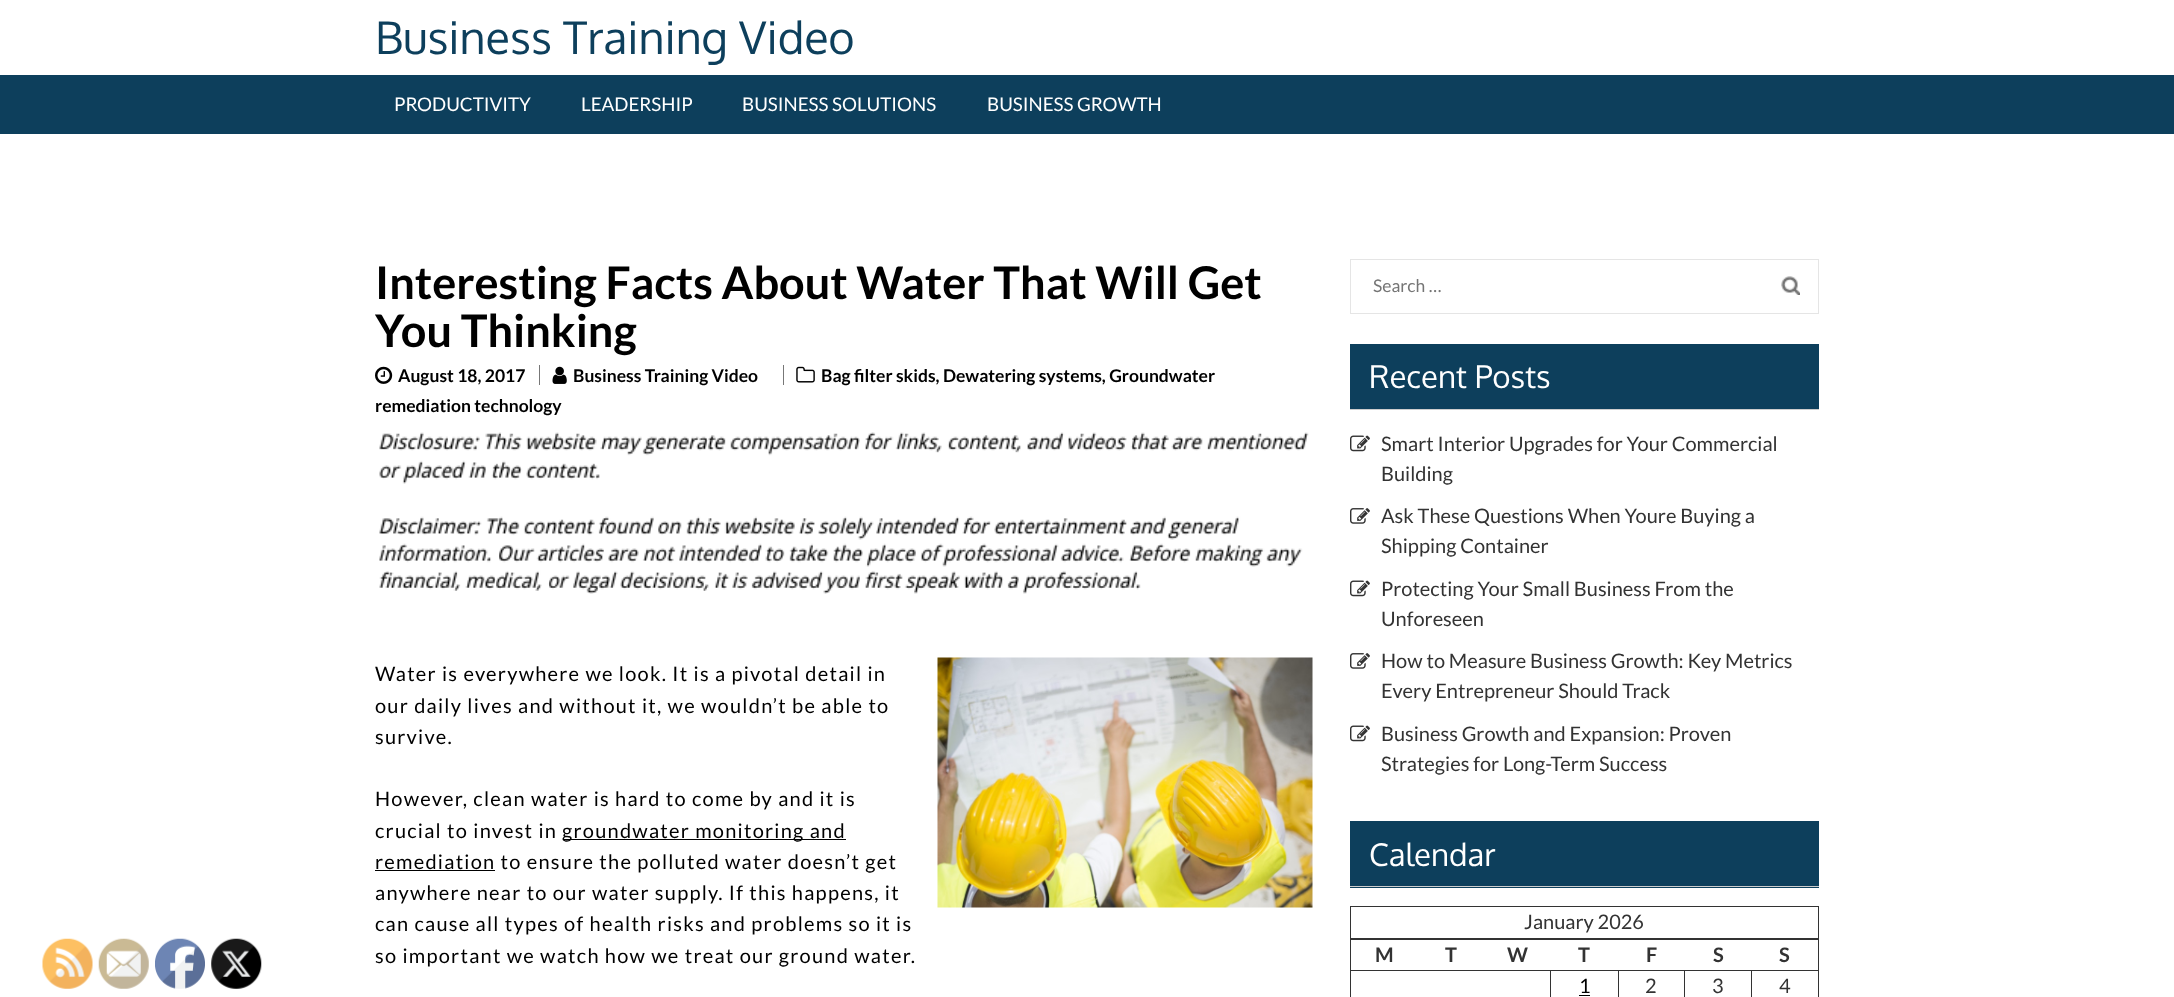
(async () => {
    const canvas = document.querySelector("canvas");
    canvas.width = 2174;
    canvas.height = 997;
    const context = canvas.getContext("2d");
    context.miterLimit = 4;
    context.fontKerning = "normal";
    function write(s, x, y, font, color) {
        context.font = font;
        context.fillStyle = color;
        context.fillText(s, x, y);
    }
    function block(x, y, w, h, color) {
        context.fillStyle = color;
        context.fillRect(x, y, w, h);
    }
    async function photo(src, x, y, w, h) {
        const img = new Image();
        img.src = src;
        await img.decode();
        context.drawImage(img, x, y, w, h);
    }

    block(0, 0, 2174, 997, "rgb(255, 255, 255)");
    await photo("media/1.png", 42, 938, 51, 51);
    await photo("media/2.png", 98, 938, 51, 51);
    await photo("media/3.png", 155, 938, 50, 51);
    await photo("media/4.png", 211, 938, 51, 51);
    write("Business Training Video", 375, 54, "45px Oxygen", "rgb(13, 63, 92)");
    block(0, 75, 2174, 59, "rgb(13, 63, 92)");
    write("PRODUCTIVITY", 394, 111, "18.75px Lato", "rgb(255, 255, 255)");
    write("LEADERSHIP", 581, 111, "18.75px Lato", "rgb(255, 255, 255)");
    write("BUSINESS SOLUTIONS", 742, 111, "18.75px Lato", "rgb(255, 255, 255)");
    write("BUSINESS GROWTH", 987, 111, "18.75px Lato", "rgb(255, 255, 255)");
    write("Interesting Facts About Water That Will Get", 375, 299, "bold 45px Lato", "rgb(0, 0, 0)");
    write("You Thinking", 375, 347, "bold 45px Lato", "rgb(0, 0, 0)");
    await photo("media/5.png", 375, 366, 18, 18);
    write("August 18, 2017", 398, 382, "bold 17.5px Lato", "rgb(0, 0, 0)");
    await photo("media/6.png", 552, 366, 15, 18);
    write("Business Training Video", 573, 382, "bold 17.5px Lato", "rgb(0, 0, 0)");
    block(539, 365, 1, 20, "rgb(119, 119, 119)");
    await photo("media/7.png", 796, 366, 19, 17);
    write("Bag filter skids, Dewatering systems, Groundwater", 821, 382, "bold 17.5px Lato", "rgb(0, 0, 0)");
    block(783, 365, 1, 20, "rgb(119, 119, 119)");
    write("remediation technology", 375, 412, "bold 17.5px Lato", "rgb(0, 0, 0)");
    await photo("media/8.png", 379, 432, 930, 162);
    context.letterSpacing = "1.25px";
    write("Water is everywhere we look. It is a pivotal detail in", 375, 681, "20px Lato", "rgb(0, 0, 0)");
    write("our daily lives and without it, we wouldn’t be able to", 375, 713, "20px Lato", "rgb(0, 0, 0)");
    write("survive.", 375, 744, "20px Lato", "rgb(0, 0, 0)");
    write("However, clean water is hard to come by and it is", 375, 806, "20px Lato", "rgb(0, 0, 0)");
    write("crucial to invest in", 375, 838, "20px Lato", "rgb(0, 0, 0)");
    block(563, 839, 283, 1, "rgb(0, 0, 0)");
    write("groundwater monitoring and", 562, 838, "20px Lato", "rgb(0, 0, 0)");
    block(375, 870, 120, 1, "rgb(0, 0, 0)");
    write("remediation to ensure the polluted water doesn’t get", 375, 869, "20px Lato", "rgb(0, 0, 0)");
    write("anywhere near to our water supply. If this happens, it", 375, 900, "20px Lato", "rgb(0, 0, 0)");
    write("can cause all types of health risks and problems so it is", 375, 931, "20px Lato", "rgb(0, 0, 0)");
    write("so important we watch how we treat our ground water.", 375, 963, "20px Lato", "rgb(0, 0, 0)");
    await photo("media/9.png", 937, 657, 376, 251);
    context.strokeStyle = "rgb(229, 229, 229)";
    context.strokeRect(1350.5, 259.5, 468, 54);
    context.letterSpacing = "0px";
    write("Search …", 1373, 292, "17.5px Lato", "rgb(117, 117, 117)");
    await photo("media/10.png", 1781, 276, 19, 19);
    block(1350, 344, 469, 65, "rgb(13, 63, 92)");
    block(1350, 409, 469, 1, "rgb(205, 205, 205)");
    write("Recent Posts", 1369, 388, "31.25px Oxygen", "rgb(255, 255, 255)");
    await photo("media/11.png", 1350, 435, 20, 17);
    write("Smart Interior Upgrades for Your Commercial", 1381, 451, "20px Lato", "rgb(51, 51, 51)");
    write("Building", 1381, 481, "20px Lato", "rgb(51, 51, 51)");
    await photo("media/12.png", 1350, 508, 20, 16);
    write("Ask These Questions When Youre Buying a", 1381, 523, "20px Lato", "rgb(51, 51, 51)");
    write("Shipping Container", 1381, 553, "20px Lato", "rgb(51, 51, 51)");
    await photo("media/11.png", 1350, 580, 20, 17);
    write("Protecting Your Small Business From the", 1381, 596, "20px Lato", "rgb(51, 51, 51)");
    write("Unforeseen", 1381, 626, "20px Lato", "rgb(51, 51, 51)");
    await photo("media/12.png", 1350, 653, 20, 16);
    write("How to Measure Business Growth: Key Metrics", 1381, 668, "20px Lato", "rgb(51, 51, 51)");
    write("Every Entrepreneur Should Track", 1381, 698, "20px Lato", "rgb(51, 51, 51)");
    await photo("media/11.png", 1350, 725, 20, 17);
    write("Business Growth and Expansion: Proven", 1381, 741, "20px Lato", "rgb(51, 51, 51)");
    write("Strategies for Long-Term Success", 1381, 771, "20px Lato", "rgb(51, 51, 51)");
    block(1350, 821, 469, 67, "rgb(13, 63, 92)");
    block(1350, 886, 469, 1, "rgb(205, 205, 205)");
    write("Calendar", 1369, 866, "31.25px Oxygen", "rgb(255, 255, 255)");
    context.strokeStyle = "rgb(51, 51, 51)";
    context.strokeRect(1350.5, 906.5, 468, 32);
    write("January 2026", 1524, 929, "20px Lato", "rgb(51, 51, 51)");
    block(1350, 939, 469, 1, "rgb(51, 51, 51)");
    block(1818, 939, 1, 32, "rgb(51, 51, 51)");
    block(1350, 970, 469, 1, "rgb(51, 51, 51)");
    block(1350, 939, 1, 58, "rgb(51, 51, 51)");
    write("M", 1375, 962, "bold 20px Lato", "rgb(51, 51, 51)");
    write("T", 1445, 962, "bold 20px Lato", "rgb(51, 51, 51)");
    write("W", 1507, 962, "bold 20px Lato", "rgb(51, 51, 51)");
    write("T", 1578, 962, "bold 20px Lato", "rgb(51, 51, 51)");
    write("F", 1646, 962, "bold 20px Lato", "rgb(51, 51, 51)");
    write("S", 1713, 962, "bold 20px Lato", "rgb(51, 51, 51)");
    write("S", 1779, 962, "bold 20px Lato", "rgb(51, 51, 51)");
    block(1550, 970, 1, 27, "rgb(51, 51, 51)");
    write("1", 1579, 993, "20px Lato", "rgb(0, 0, 0)");
    block(1579, 995, 11, 1, "rgb(0, 0, 0)");
    block(1618, 970, 1, 27, "rgb(51, 51, 51)");
    write("2", 1645, 993, "20px Lato", "rgb(51, 51, 51)");
    block(1684, 970, 1, 27, "rgb(51, 51, 51)");
    write("3", 1712, 993, "20px Lato", "rgb(51, 51, 51)");
    block(1818, 970, 1, 27, "rgb(51, 51, 51)");
    block(1751, 970, 1, 27, "rgb(51, 51, 51)");
    write("4", 1779, 993, "20px Lato", "rgb(51, 51, 51)");
})();
